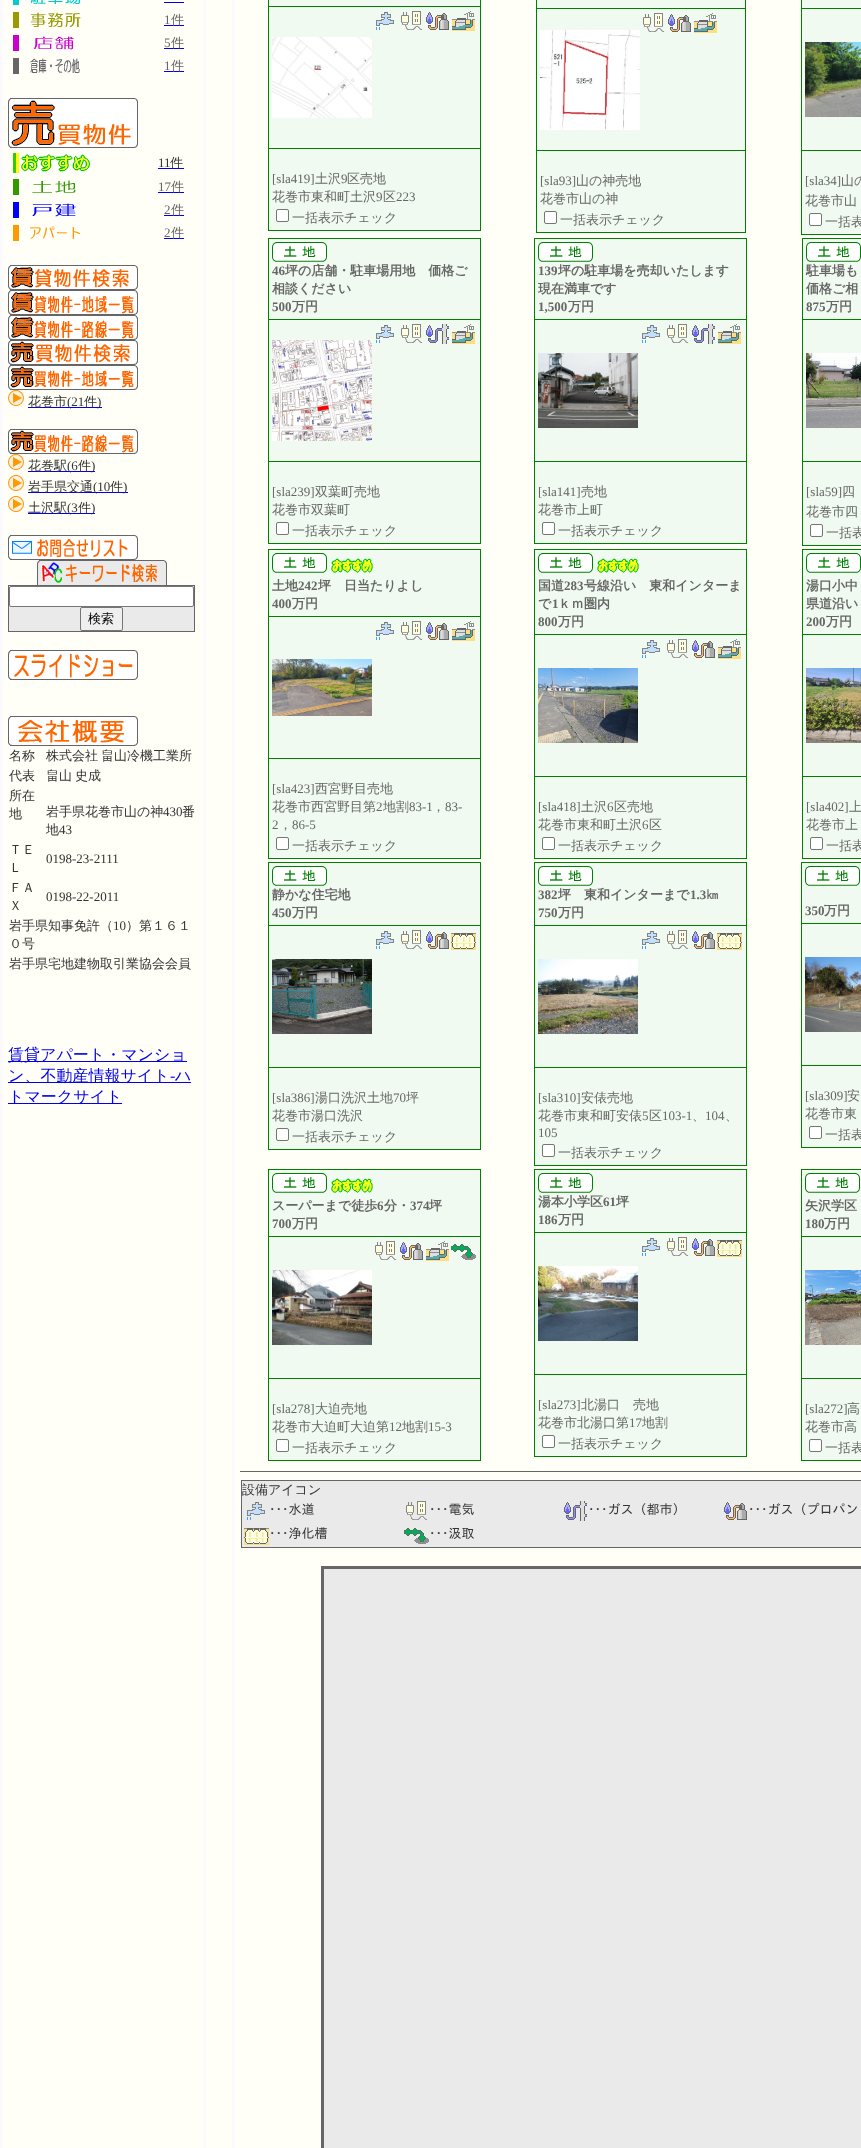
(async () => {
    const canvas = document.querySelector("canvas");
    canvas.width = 861;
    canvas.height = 2148;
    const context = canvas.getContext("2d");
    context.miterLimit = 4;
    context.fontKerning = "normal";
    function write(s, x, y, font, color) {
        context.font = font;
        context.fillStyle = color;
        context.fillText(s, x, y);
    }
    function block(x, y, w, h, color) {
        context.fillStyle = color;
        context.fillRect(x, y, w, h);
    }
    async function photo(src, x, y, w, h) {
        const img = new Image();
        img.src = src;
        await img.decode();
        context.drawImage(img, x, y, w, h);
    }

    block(0, 0, 861, 2148, "rgb(250, 250, 255)");
    block(3, 0, 200, 2148, "rgb(255, 255, 247)");
    await photo("media/1.png", 13, 0, 67, 5);
    block(164, 2, 20, 1, "rgb(0, 0, 238)");
    await photo("media/2.png", 13, 12, 68, 16);
    write("1", 164, 24, "13px Liberation Serif", "rgb(102, 102, 102)");
    block(164, 25, 20, 1, "rgb(0, 0, 238)");
    write("件", 171, 24, "500 13px WenQuanYi Zen Hei", "rgb(102, 102, 102)");
    await photo("media/3.png", 13, 35, 61, 16);
    write("5", 164, 47, "13px Liberation Serif", "rgb(102, 102, 102)");
    block(164, 48, 20, 1, "rgb(0, 0, 238)");
    write("件", 171, 47, "500 13px WenQuanYi Zen Hei", "rgb(102, 102, 102)");
    await photo("media/4.png", 13, 58, 67, 16);
    write("1", 164, 70, "13px Liberation Serif", "rgb(102, 102, 102)");
    block(164, 71, 20, 1, "rgb(0, 0, 238)");
    write("件", 171, 70, "500 13px WenQuanYi Zen Hei", "rgb(102, 102, 102)");
    await photo("media/5.png", 8, 98, 130, 50);
    await photo("media/6.png", 13, 153, 77, 20);
    write("11", 158, 167, "13px Liberation Serif", "rgb(51, 51, 51)");
    block(158, 168, 26, 1, "rgb(0, 0, 238)");
    write("件", 170, 167, "500 13px WenQuanYi Zen Hei", "rgb(51, 51, 51)");
    await photo("media/7.png", 13, 179, 63, 16);
    write("17", 158, 191, "13px Liberation Serif", "rgb(102, 102, 102)");
    block(158, 192, 26, 1, "rgb(0, 0, 238)");
    write("件", 171, 191, "500 13px WenQuanYi Zen Hei", "rgb(102, 102, 102)");
    await photo("media/8.png", 13, 202, 63, 16);
    write("2", 164, 214, "13px Liberation Serif", "rgb(102, 102, 102)");
    block(164, 215, 20, 1, "rgb(0, 0, 238)");
    write("件", 171, 214, "500 13px WenQuanYi Zen Hei", "rgb(102, 102, 102)");
    await photo("media/9.png", 13, 225, 67, 16);
    write("2", 164, 237, "13px Liberation Serif", "rgb(102, 102, 102)");
    block(164, 238, 20, 1, "rgb(0, 0, 238)");
    write("件", 171, 237, "500 13px WenQuanYi Zen Hei", "rgb(102, 102, 102)");
    await photo("media/10.png", 8, 265, 130, 25);
    await photo("media/11.png", 8, 290, 130, 25);
    await photo("media/12.png", 8, 315, 130, 25);
    await photo("media/13.png", 8, 340, 130, 25);
    await photo("media/14.png", 8, 365, 130, 25);
    await photo("media/15.png", 8, 390, 16, 16);
    block(28, 407, 74, 1, "rgb(0, 0, 238)");
    write("花巻市", 28, 406, "500 13px WenQuanYi Zen Hei", "rgb(51, 51, 51)");
    write("(21", 67, 406, "13px Liberation Serif", "rgb(51, 51, 51)");
    write("件", 84, 406, "500 13px WenQuanYi Zen Hei", "rgb(51, 51, 51)");
    write(")", 97, 406, "13px Liberation Serif", "rgb(51, 51, 51)");
    await photo("media/16.png", 8, 429, 130, 25);
    await photo("media/15.png", 8, 454, 16, 16);
    block(28, 471, 67, 1, "rgb(0, 0, 238)");
    write("花巻駅", 28, 470, "500 13px WenQuanYi Zen Hei", "rgb(51, 51, 51)");
    write("(6", 67, 470, "13px Liberation Serif", "rgb(51, 51, 51)");
    write("件", 78, 470, "500 13px WenQuanYi Zen Hei", "rgb(51, 51, 51)");
    write(")", 91, 470, "13px Liberation Serif", "rgb(51, 51, 51)");
    await photo("media/15.png", 8, 475, 16, 16);
    block(28, 492, 100, 1, "rgb(0, 0, 238)");
    write("岩手県交通", 28, 491, "500 13px WenQuanYi Zen Hei", "rgb(51, 51, 51)");
    write("(10", 93, 491, "13px Liberation Serif", "rgb(51, 51, 51)");
    write("件", 110, 491, "500 13px WenQuanYi Zen Hei", "rgb(51, 51, 51)");
    write(")", 123, 491, "13px Liberation Serif", "rgb(51, 51, 51)");
    await photo("media/15.png", 8, 496, 16, 16);
    block(28, 513, 67, 1, "rgb(0, 0, 238)");
    write("土沢駅", 28, 512, "500 13px WenQuanYi Zen Hei", "rgb(51, 51, 51)");
    write("(3", 67, 512, "13px Liberation Serif", "rgb(51, 51, 51)");
    write("件", 78, 512, "500 13px WenQuanYi Zen Hei", "rgb(51, 51, 51)");
    write(")", 91, 512, "13px Liberation Serif", "rgb(51, 51, 51)");
    await photo("media/17.png", 8, 535, 130, 25);
    await photo("media/18.png", 37, 560, 130, 25);
    block(8, 585, 187, 47, "rgb(102, 102, 102)");
    block(9, 586, 185, 45, "rgb(234, 234, 234)");
    context.fillStyle = "rgb(255, 255, 255)";
    context.beginPath();
    context.roundRect(9.5, 586.5, 184, 20, 1.5);
    context.fill();
    context.strokeStyle = "rgb(118, 118, 118)";
    context.stroke();
    context.fillStyle = "rgb(239, 239, 239)";
    context.beginPath();
    context.roundRect(80.5, 607.5, 42, 23, 1.5);
    context.fill();
    context.stroke();
    write("検索", 88, 623, "500 13px WenQuanYi Zen Hei", "rgb(0, 0, 0)");
    await photo("media/19.png", 8, 650, 130, 30);
    await photo("media/20.png", 8, 716, 130, 30);
    write("名称", 9, 760, "500 13px WenQuanYi Zen Hei", "rgb(51, 51, 51)");
    context.wordSpacing = "-1px";
    write("株式会社 畠山冷機工業所", 46, 760, "500 13px WenQuanYi Zen Hei", "rgb(51, 51, 51)");
    context.wordSpacing = "0px";
    write("代表", 9, 780, "500 13px WenQuanYi Zen Hei", "rgb(51, 51, 51)");
    context.wordSpacing = "-1px";
    write("畠山 史成", 46, 780, "500 13px WenQuanYi Zen Hei", "rgb(51, 51, 51)");
    context.wordSpacing = "0px";
    write("所在", 9, 800, "500 13px WenQuanYi Zen Hei", "rgb(51, 51, 51)");
    write("地", 9, 818, "500 13px WenQuanYi Zen Hei", "rgb(51, 51, 51)");
    write("岩手県花巻市山の神", 46, 816, "500 13px WenQuanYi Zen Hei", "rgb(51, 51, 51)");
    write("430", 163, 816, "13px Liberation Serif", "rgb(51, 51, 51)");
    write("番", 182, 816, "500 13px WenQuanYi Zen Hei", "rgb(51, 51, 51)");
    write("地", 46, 834, "500 13px WenQuanYi Zen Hei", "rgb(51, 51, 51)");
    write("43", 59, 834, "13px Liberation Serif", "rgb(51, 51, 51)");
    write("ＴＥ", 9, 854, "500 13px WenQuanYi Zen Hei", "rgb(51, 51, 51)");
    write("Ｌ", 9, 872, "500 13px WenQuanYi Zen Hei", "rgb(51, 51, 51)");
    write("0198-23-2111", 46, 863, "13px Liberation Serif", "rgb(51, 51, 51)");
    write("ＦＡ", 9, 892, "500 13px WenQuanYi Zen Hei", "rgb(51, 51, 51)");
    write("Ｘ", 9, 910, "500 13px WenQuanYi Zen Hei", "rgb(51, 51, 51)");
    write("0198-22-2011", 46, 901, "13px Liberation Serif", "rgb(51, 51, 51)");
    write("岩手県知事免許（", 9, 930, "500 13px WenQuanYi Zen Hei", "rgb(51, 51, 51)");
    write("10", 113, 930, "13px Liberation Serif", "rgb(51, 51, 51)");
    write("）第１６１", 126, 930, "500 13px WenQuanYi Zen Hei", "rgb(51, 51, 51)");
    write("０号", 9, 948, "500 13px WenQuanYi Zen Hei", "rgb(51, 51, 51)");
    write("岩手県宅地建物取引業協会会員", 9, 968, "500 13px WenQuanYi Zen Hei", "rgb(51, 51, 51)");
    block(8, 1061, 179, 1, "rgb(0, 0, 238)");
    write("賃貸アパート・マンショ", 8, 1060, "500 16px WenQuanYi Zen Hei", "rgb(0, 0, 238)");
    block(8, 1082, 183, 1, "rgb(0, 0, 238)");
    write("ン、不動産情報サイト", 8, 1081, "500 16px WenQuanYi Zen Hei", "rgb(0, 0, 238)");
    write("-", 170, 1081, "16px Liberation Serif", "rgb(0, 0, 238)");
    write("ハ", 175, 1081, "500 16px WenQuanYi Zen Hei", "rgb(0, 0, 238)");
    block(8, 1103, 114, 1, "rgb(0, 0, 238)");
    write("トマークサイト", 8, 1102, "500 16px WenQuanYi Zen Hei", "rgb(0, 0, 238)");
    block(206, 0, 26, 2148, "rgb(255, 255, 247)");
    block(235, 0, 626, 2148, "rgb(255, 255, 247)");
    block(268, 0, 213, 231, "rgb(0, 128, 0)");
    block(269, 0, 211, 6, "rgb(240, 250, 240)");
    block(269, 7, 211, 141, "rgb(240, 250, 240)");
    await photo("media/21.png", 376, 12, 18, 18);
    await photo("media/22.png", 401, 11, 22, 19);
    await photo("media/23.png", 426, 12, 23, 18);
    await photo("media/24.png", 452, 11, 23, 20);
    await photo("media/25.png", 272, 37, 100, 81);
    block(269, 149, 211, 81, "rgb(240, 250, 240)");
    write("[sla419]", 272, 183, "13px Liberation Serif", "rgb(102, 102, 102)");
    write("土沢", 315, 183, "500 13px WenQuanYi Zen Hei", "rgb(102, 102, 102)");
    write("9", 341, 183, "13px Liberation Serif", "rgb(102, 102, 102)");
    write("区売地", 347, 183, "500 13px WenQuanYi Zen Hei", "rgb(102, 102, 102)");
    write("花巻市東和町土沢", 272, 201, "500 13px WenQuanYi Zen Hei", "rgb(102, 102, 102)");
    write("9", 376, 201, "13px Liberation Serif", "rgb(102, 102, 102)");
    write("区", 383, 201, "500 13px WenQuanYi Zen Hei", "rgb(102, 102, 102)");
    write("223", 396, 201, "13px Liberation Serif", "rgb(102, 102, 102)");
    context.fillStyle = "rgb(255, 255, 255)";
    context.beginPath();
    context.roundRect(276.5, 209.5, 12, 12, 1.5);
    context.fill();
    context.stroke();
    write("一括表示チェック", 292, 222, "500 13px WenQuanYi Zen Hei", "rgb(102, 102, 102)");
    block(536, 0, 210, 233, "rgb(0, 128, 0)");
    block(537, 0, 208, 8, "rgb(240, 250, 240)");
    block(537, 9, 208, 141, "rgb(240, 250, 240)");
    await photo("media/22.png", 643, 13, 22, 19);
    await photo("media/23.png", 668, 14, 23, 18);
    await photo("media/24.png", 694, 13, 23, 20);
    await photo("media/26.png", 540, 30, 100, 100);
    block(537, 151, 208, 81, "rgb(240, 250, 240)");
    write("[sla93]", 540, 185, "13px Liberation Serif", "rgb(102, 102, 102)");
    write("山の神売地", 576, 185, "500 13px WenQuanYi Zen Hei", "rgb(102, 102, 102)");
    write("花巻市山の神", 540, 203, "500 13px WenQuanYi Zen Hei", "rgb(102, 102, 102)");
    context.fillStyle = "rgb(255, 255, 255)";
    context.beginPath();
    context.roundRect(544.5, 211.5, 12, 12, 1.5);
    context.fill();
    context.stroke();
    write("一括表示チェック", 560, 224, "500 13px WenQuanYi Zen Hei", "rgb(102, 102, 102)");
    block(801, 0, 60, 235, "rgb(0, 128, 0)");
    block(802, 0, 59, 8, "rgb(240, 250, 240)");
    block(802, 9, 59, 141, "rgb(240, 250, 240)");
    await photo("media/27.png", 805, 42, 56, 75);
    block(802, 151, 59, 83, "rgb(240, 250, 240)");
    write("[sla34]", 805, 185, "13px Liberation Serif", "rgb(102, 102, 102)");
    write("山の", 841, 185, "500 13px WenQuanYi Zen Hei", "rgb(102, 102, 102)");
    write("花巻市山", 805, 205, "500 13px WenQuanYi Zen Hei", "rgb(102, 102, 102)");
    context.fillStyle = "rgb(255, 255, 255)";
    context.beginPath();
    context.roundRect(809.5, 213.5, 12, 12, 1.5);
    context.fill();
    context.stroke();
    write("一括表", 825, 226, "500 13px WenQuanYi Zen Hei", "rgb(102, 102, 102)");
    block(268, 238, 213, 306, "rgb(0, 128, 0)");
    block(269, 239, 211, 80, "rgb(240, 250, 240)");
    await photo("media/28.png", 272, 242, 55, 20);
    write("46", 272, 275, "bold 13px Liberation Serif", "rgb(102, 102, 102)");
    write("坪の店舗・駐車場用地　価格ご", 285, 275, "bold 13px WenQuanYi Zen Hei", "rgb(102, 102, 102)");
    write("相談ください", 272, 293, "bold 13px WenQuanYi Zen Hei", "rgb(102, 102, 102)");
    write("500", 272, 311, "bold 13px Liberation Serif", "rgb(102, 102, 102)");
    write("万円", 292, 311, "bold 13px WenQuanYi Zen Hei", "rgb(102, 102, 102)");
    block(269, 320, 211, 141, "rgb(240, 250, 240)");
    await photo("media/21.png", 376, 325, 18, 18);
    await photo("media/22.png", 401, 324, 22, 19);
    await photo("media/29.png", 426, 324, 23, 20);
    await photo("media/24.png", 452, 324, 23, 20);
    await photo("media/30.png", 272, 340, 100, 101);
    block(269, 462, 211, 81, "rgb(240, 250, 240)");
    write("[sla239]", 272, 496, "13px Liberation Serif", "rgb(102, 102, 102)");
    write("双葉町売地", 315, 496, "500 13px WenQuanYi Zen Hei", "rgb(102, 102, 102)");
    write("花巻市双葉町", 272, 514, "500 13px WenQuanYi Zen Hei", "rgb(102, 102, 102)");
    context.fillStyle = "rgb(255, 255, 255)";
    context.beginPath();
    context.roundRect(276.5, 522.5, 12, 12, 1.5);
    context.fill();
    context.stroke();
    write("一括表示チェック", 292, 535, "500 13px WenQuanYi Zen Hei", "rgb(102, 102, 102)");
    block(534, 238, 213, 306, "rgb(0, 128, 0)");
    block(535, 239, 211, 80, "rgb(240, 250, 240)");
    await photo("media/28.png", 538, 242, 55, 20);
    write("139", 538, 275, "bold 13px Liberation Serif", "rgb(102, 102, 102)");
    write("坪の駐車場を売却いたします", 558, 275, "bold 13px WenQuanYi Zen Hei", "rgb(102, 102, 102)");
    write("現在満車です", 538, 293, "bold 13px WenQuanYi Zen Hei", "rgb(102, 102, 102)");
    write("1,500", 538, 311, "bold 13px Liberation Serif", "rgb(102, 102, 102)");
    write("万円", 568, 311, "bold 13px WenQuanYi Zen Hei", "rgb(102, 102, 102)");
    block(535, 320, 211, 141, "rgb(240, 250, 240)");
    await photo("media/21.png", 642, 325, 18, 18);
    await photo("media/22.png", 667, 324, 22, 19);
    await photo("media/29.png", 692, 324, 23, 20);
    await photo("media/24.png", 718, 324, 23, 20);
    await photo("media/31.png", 538, 353, 100, 75);
    block(535, 462, 211, 81, "rgb(240, 250, 240)");
    write("[sla141]", 538, 496, "13px Liberation Serif", "rgb(102, 102, 102)");
    write("売地", 581, 496, "500 13px WenQuanYi Zen Hei", "rgb(102, 102, 102)");
    write("花巻市上町", 538, 514, "500 13px WenQuanYi Zen Hei", "rgb(102, 102, 102)");
    context.fillStyle = "rgb(255, 255, 255)";
    context.beginPath();
    context.roundRect(542.5, 522.5, 12, 12, 1.5);
    context.fill();
    context.stroke();
    write("一括表示チェック", 558, 535, "500 13px WenQuanYi Zen Hei", "rgb(102, 102, 102)");
    block(802, 238, 59, 308, "rgb(0, 128, 0)");
    block(803, 239, 58, 80, "rgb(240, 250, 240)");
    await photo("media/28.png", 806, 242, 55, 20);
    write("駐車場も", 806, 275, "bold 13px WenQuanYi Zen Hei", "rgb(102, 102, 102)");
    write("価格ご相", 806, 293, "bold 13px WenQuanYi Zen Hei", "rgb(102, 102, 102)");
    write("875", 806, 311, "bold 13px Liberation Serif", "rgb(102, 102, 102)");
    write("万円", 826, 311, "bold 13px WenQuanYi Zen Hei", "rgb(102, 102, 102)");
    block(803, 320, 58, 141, "rgb(240, 250, 240)");
    await photo("media/32.png", 806, 353, 55, 75);
    block(803, 462, 58, 83, "rgb(240, 250, 240)");
    write("[sla59]", 806, 496, "13px Liberation Serif", "rgb(102, 102, 102)");
    write("四", 842, 496, "500 13px WenQuanYi Zen Hei", "rgb(102, 102, 102)");
    write("花巻市四", 806, 516, "500 13px WenQuanYi Zen Hei", "rgb(102, 102, 102)");
    context.fillStyle = "rgb(255, 255, 255)";
    context.beginPath();
    context.roundRect(810.5, 524.5, 12, 12, 1.5);
    context.fill();
    context.stroke();
    write("一括表", 826, 537, "500 13px WenQuanYi Zen Hei", "rgb(102, 102, 102)");
    block(268, 549, 213, 310, "rgb(0, 128, 0)");
    block(269, 550, 211, 66, "rgb(240, 250, 240)");
    await photo("media/28.png", 272, 553, 55, 20);
    await photo("media/33.png", 331, 558, 42, 15);
    write("土地", 272, 590, "bold 13px WenQuanYi Zen Hei", "rgb(102, 102, 102)");
    write("242", 298, 590, "bold 13px Liberation Serif", "rgb(102, 102, 102)");
    write("坪　日当たりよし", 318, 590, "bold 13px WenQuanYi Zen Hei", "rgb(102, 102, 102)");
    write("400", 272, 608, "bold 13px Liberation Serif", "rgb(102, 102, 102)");
    write("万円", 292, 608, "bold 13px WenQuanYi Zen Hei", "rgb(102, 102, 102)");
    block(269, 617, 211, 141, "rgb(240, 250, 240)");
    await photo("media/21.png", 376, 622, 18, 18);
    await photo("media/22.png", 401, 621, 22, 19);
    await photo("media/23.png", 426, 622, 23, 18);
    await photo("media/24.png", 452, 621, 23, 20);
    await photo("media/34.png", 272, 659, 100, 57);
    block(269, 759, 211, 99, "rgb(240, 250, 240)");
    write("[sla423]", 272, 793, "13px Liberation Serif", "rgb(102, 102, 102)");
    write("西宮野目売地", 315, 793, "500 13px WenQuanYi Zen Hei", "rgb(102, 102, 102)");
    write("花巻市西宮野目第", 272, 811, "500 13px WenQuanYi Zen Hei", "rgb(102, 102, 102)");
    write("2", 376, 811, "13px Liberation Serif", "rgb(102, 102, 102)");
    write("地割", 383, 811, "500 13px WenQuanYi Zen Hei", "rgb(102, 102, 102)");
    write("83-1", 409, 811, "13px Liberation Serif", "rgb(102, 102, 102)");
    write("，", 432, 811, "500 13px WenQuanYi Zen Hei", "rgb(102, 102, 102)");
    write("83-", 445, 811, "13px Liberation Serif", "rgb(102, 102, 102)");
    write("2", 272, 829, "13px Liberation Serif", "rgb(102, 102, 102)");
    write("，", 279, 829, "500 13px WenQuanYi Zen Hei", "rgb(102, 102, 102)");
    write("86-5", 292, 829, "13px Liberation Serif", "rgb(102, 102, 102)");
    context.fillStyle = "rgb(255, 255, 255)";
    context.beginPath();
    context.roundRect(276.5, 837.5, 12, 12, 1.5);
    context.fill();
    context.stroke();
    write("一括表示チェック", 292, 850, "500 13px WenQuanYi Zen Hei", "rgb(102, 102, 102)");
    block(534, 549, 213, 310, "rgb(0, 128, 0)");
    block(535, 550, 211, 84, "rgb(240, 250, 240)");
    await photo("media/28.png", 538, 553, 55, 20);
    await photo("media/33.png", 597, 558, 42, 15);
    write("国道", 538, 590, "bold 13px WenQuanYi Zen Hei", "rgb(102, 102, 102)");
    write("283", 564, 590, "bold 13px Liberation Serif", "rgb(102, 102, 102)");
    write("号線沿い　東和インターま", 584, 590, "bold 13px WenQuanYi Zen Hei", "rgb(102, 102, 102)");
    write("で", 538, 608, "bold 13px WenQuanYi Zen Hei", "rgb(102, 102, 102)");
    write("1", 552, 608, "bold 13px Liberation Serif", "rgb(102, 102, 102)");
    write("ｋｍ圏内", 558, 608, "bold 13px WenQuanYi Zen Hei", "rgb(102, 102, 102)");
    write("800", 538, 626, "bold 13px Liberation Serif", "rgb(102, 102, 102)");
    write("万円", 558, 626, "bold 13px WenQuanYi Zen Hei", "rgb(102, 102, 102)");
    block(535, 635, 211, 141, "rgb(240, 250, 240)");
    await photo("media/21.png", 642, 640, 18, 18);
    await photo("media/22.png", 667, 639, 22, 19);
    await photo("media/23.png", 692, 640, 23, 18);
    await photo("media/24.png", 718, 639, 23, 20);
    await photo("media/35.png", 538, 668, 100, 75);
    block(535, 777, 211, 81, "rgb(240, 250, 240)");
    write("[sla418]", 538, 811, "13px Liberation Serif", "rgb(102, 102, 102)");
    write("土沢", 581, 811, "500 13px WenQuanYi Zen Hei", "rgb(102, 102, 102)");
    write("6", 607, 811, "13px Liberation Serif", "rgb(102, 102, 102)");
    write("区売地", 614, 811, "500 13px WenQuanYi Zen Hei", "rgb(102, 102, 102)");
    write("花巻市東和町土沢", 538, 829, "500 13px WenQuanYi Zen Hei", "rgb(102, 102, 102)");
    write("6", 642, 829, "13px Liberation Serif", "rgb(102, 102, 102)");
    write("区", 649, 829, "500 13px WenQuanYi Zen Hei", "rgb(102, 102, 102)");
    context.fillStyle = "rgb(255, 255, 255)";
    context.beginPath();
    context.roundRect(542.5, 837.5, 12, 12, 1.5);
    context.fill();
    context.stroke();
    write("一括表示チェック", 558, 850, "500 13px WenQuanYi Zen Hei", "rgb(102, 102, 102)");
    block(802, 549, 59, 310, "rgb(0, 128, 0)");
    block(803, 550, 58, 84, "rgb(240, 250, 240)");
    await photo("media/28.png", 806, 553, 55, 20);
    write("湯口小中", 806, 590, "bold 13px WenQuanYi Zen Hei", "rgb(102, 102, 102)");
    write("県道沿い", 806, 608, "bold 13px WenQuanYi Zen Hei", "rgb(102, 102, 102)");
    write("200", 806, 626, "bold 13px Liberation Serif", "rgb(102, 102, 102)");
    write("万円", 826, 626, "bold 13px WenQuanYi Zen Hei", "rgb(102, 102, 102)");
    block(803, 635, 58, 141, "rgb(240, 250, 240)");
    await photo("media/36.png", 806, 668, 55, 75);
    block(803, 777, 58, 81, "rgb(240, 250, 240)");
    write("[sla402]", 806, 811, "13px Liberation Serif", "rgb(102, 102, 102)");
    write("上", 849, 811, "500 13px WenQuanYi Zen Hei", "rgb(102, 102, 102)");
    write("花巻市上", 806, 829, "500 13px WenQuanYi Zen Hei", "rgb(102, 102, 102)");
    context.fillStyle = "rgb(255, 255, 255)";
    context.beginPath();
    context.roundRect(810.5, 837.5, 12, 12, 1.5);
    context.fill();
    context.stroke();
    write("一括表", 826, 850, "500 13px WenQuanYi Zen Hei", "rgb(102, 102, 102)");
    block(268, 862, 213, 288, "rgb(0, 128, 0)");
    block(269, 863, 211, 62, "rgb(240, 250, 240)");
    await photo("media/28.png", 272, 866, 55, 20);
    write("静かな住宅地", 272, 899, "bold 13px WenQuanYi Zen Hei", "rgb(102, 102, 102)");
    write("450", 272, 917, "bold 13px Liberation Serif", "rgb(102, 102, 102)");
    write("万円", 292, 917, "bold 13px WenQuanYi Zen Hei", "rgb(102, 102, 102)");
    block(269, 926, 211, 141, "rgb(240, 250, 240)");
    await photo("media/21.png", 376, 931, 18, 18);
    await photo("media/22.png", 401, 930, 22, 19);
    await photo("media/23.png", 426, 931, 23, 18);
    await photo("media/37.png", 451, 933, 25, 17);
    await photo("media/38.png", 272, 959, 100, 75);
    block(269, 1068, 211, 81, "rgb(240, 250, 240)");
    write("[sla386]", 272, 1102, "13px Liberation Serif", "rgb(102, 102, 102)");
    write("湯口洗沢土地", 315, 1102, "500 13px WenQuanYi Zen Hei", "rgb(102, 102, 102)");
    write("70", 393, 1102, "13px Liberation Serif", "rgb(102, 102, 102)");
    write("坪", 406, 1102, "500 13px WenQuanYi Zen Hei", "rgb(102, 102, 102)");
    write("花巻市湯口洗沢", 272, 1120, "500 13px WenQuanYi Zen Hei", "rgb(102, 102, 102)");
    context.fillStyle = "rgb(255, 255, 255)";
    context.beginPath();
    context.roundRect(276.5, 1128.5, 12, 12, 1.5);
    context.fill();
    context.stroke();
    write("一括表示チェック", 292, 1141, "500 13px WenQuanYi Zen Hei", "rgb(102, 102, 102)");
    block(534, 862, 213, 304, "rgb(0, 128, 0)");
    block(535, 863, 211, 62, "rgb(240, 250, 240)");
    await photo("media/28.png", 538, 866, 55, 20);
    write("382", 538, 899, "bold 13px Liberation Serif", "rgb(102, 102, 102)");
    write("坪　東和インターまで", 558, 899, "bold 13px WenQuanYi Zen Hei", "rgb(102, 102, 102)");
    write("1.3", 690, 899, "bold 13px Liberation Serif", "rgb(102, 102, 102)");
    write("㎞", 706, 899, "bold 13px WenQuanYi Zen Hei", "rgb(102, 102, 102)");
    write("750", 538, 917, "bold 13px Liberation Serif", "rgb(102, 102, 102)");
    write("万円", 558, 917, "bold 13px WenQuanYi Zen Hei", "rgb(102, 102, 102)");
    block(535, 926, 211, 141, "rgb(240, 250, 240)");
    await photo("media/21.png", 642, 931, 18, 18);
    await photo("media/22.png", 667, 930, 22, 19);
    await photo("media/23.png", 692, 931, 23, 18);
    await photo("media/37.png", 717, 933, 25, 17);
    await photo("media/39.png", 538, 959, 100, 75);
    block(535, 1068, 211, 97, "rgb(240, 250, 240)");
    write("[sla310]", 538, 1102, "13px Liberation Serif", "rgb(102, 102, 102)");
    write("安俵売地", 581, 1102, "500 13px WenQuanYi Zen Hei", "rgb(102, 102, 102)");
    write("花巻市東和町安俵", 538, 1120, "500 13px WenQuanYi Zen Hei", "rgb(102, 102, 102)");
    write("5", 642, 1120, "13px Liberation Serif", "rgb(102, 102, 102)");
    write("区", 649, 1120, "500 13px WenQuanYi Zen Hei", "rgb(102, 102, 102)");
    write("103-1", 662, 1120, "13px Liberation Serif", "rgb(102, 102, 102)");
    write("、", 692, 1120, "500 13px WenQuanYi Zen Hei", "rgb(102, 102, 102)");
    write("104", 705, 1120, "13px Liberation Serif", "rgb(102, 102, 102)");
    write("、", 725, 1120, "500 13px WenQuanYi Zen Hei", "rgb(102, 102, 102)");
    write("105", 538, 1137, "13px Liberation Serif", "rgb(102, 102, 102)");
    context.fillStyle = "rgb(255, 255, 255)";
    context.beginPath();
    context.roundRect(542.5, 1144.5, 12, 12, 1.5);
    context.fill();
    context.stroke();
    write("一括表示チェック", 558, 1157, "500 13px WenQuanYi Zen Hei", "rgb(102, 102, 102)");
    block(801, 862, 60, 286, "rgb(0, 128, 0)");
    block(802, 863, 59, 60, "rgb(240, 250, 240)");
    await photo("media/28.png", 805, 866, 55, 20);
    write("350", 805, 915, "bold 13px Liberation Serif", "rgb(102, 102, 102)");
    write("万円", 824, 915, "bold 13px WenQuanYi Zen Hei", "rgb(102, 102, 102)");
    block(802, 924, 59, 141, "rgb(240, 250, 240)");
    await photo("media/40.png", 805, 957, 56, 75);
    block(802, 1066, 59, 81, "rgb(240, 250, 240)");
    write("[sla309]", 805, 1100, "13px Liberation Serif", "rgb(102, 102, 102)");
    write("安", 847, 1100, "500 13px WenQuanYi Zen Hei", "rgb(102, 102, 102)");
    write("花巻市東", 805, 1118, "500 13px WenQuanYi Zen Hei", "rgb(102, 102, 102)");
    context.fillStyle = "rgb(255, 255, 255)";
    context.beginPath();
    context.roundRect(809.5, 1126.5, 12, 12, 1.5);
    context.fill();
    context.stroke();
    write("一括表", 825, 1139, "500 13px WenQuanYi Zen Hei", "rgb(102, 102, 102)");
    block(268, 1169, 213, 292, "rgb(0, 128, 0)");
    block(269, 1170, 211, 66, "rgb(240, 250, 240)");
    await photo("media/28.png", 272, 1173, 55, 20);
    await photo("media/33.png", 331, 1178, 42, 15);
    write("スーパーまで徒歩", 272, 1210, "bold 13px WenQuanYi Zen Hei", "rgb(102, 102, 102)");
    write("6", 377, 1210, "bold 13px Liberation Serif", "rgb(102, 102, 102)");
    write("分・", 384, 1210, "bold 13px WenQuanYi Zen Hei", "rgb(102, 102, 102)");
    write("374", 410, 1210, "bold 13px Liberation Serif", "rgb(102, 102, 102)");
    write("坪", 429, 1210, "bold 13px WenQuanYi Zen Hei", "rgb(102, 102, 102)");
    write("700", 272, 1228, "bold 13px Liberation Serif", "rgb(102, 102, 102)");
    write("万円", 292, 1228, "bold 13px WenQuanYi Zen Hei", "rgb(102, 102, 102)");
    block(269, 1237, 211, 141, "rgb(240, 250, 240)");
    await photo("media/22.png", 375, 1241, 22, 19);
    await photo("media/23.png", 400, 1242, 23, 18);
    await photo("media/24.png", 426, 1241, 23, 20);
    await photo("media/41.png", 451, 1244, 25, 16);
    await photo("media/42.png", 272, 1270, 100, 75);
    block(269, 1379, 211, 81, "rgb(240, 250, 240)");
    write("[sla278]", 272, 1413, "13px Liberation Serif", "rgb(102, 102, 102)");
    write("大迫売地", 315, 1413, "500 13px WenQuanYi Zen Hei", "rgb(102, 102, 102)");
    write("花巻市大迫町大迫第", 272, 1431, "500 13px WenQuanYi Zen Hei", "rgb(102, 102, 102)");
    write("12", 389, 1431, "13px Liberation Serif", "rgb(102, 102, 102)");
    write("地割", 402, 1431, "500 13px WenQuanYi Zen Hei", "rgb(102, 102, 102)");
    write("15-3", 428, 1431, "13px Liberation Serif", "rgb(102, 102, 102)");
    context.fillStyle = "rgb(255, 255, 255)";
    context.beginPath();
    context.roundRect(276.5, 1439.5, 12, 12, 1.5);
    context.fill();
    context.stroke();
    write("一括表示チェック", 292, 1452, "500 13px WenQuanYi Zen Hei", "rgb(102, 102, 102)");
    block(534, 1169, 213, 288, "rgb(0, 128, 0)");
    block(535, 1170, 211, 62, "rgb(240, 250, 240)");
    await photo("media/28.png", 538, 1173, 55, 20);
    write("湯本小学区", 538, 1206, "bold 13px WenQuanYi Zen Hei", "rgb(102, 102, 102)");
    write("61", 603, 1206, "bold 13px Liberation Serif", "rgb(102, 102, 102)");
    write("坪", 616, 1206, "bold 13px WenQuanYi Zen Hei", "rgb(102, 102, 102)");
    write("186", 538, 1224, "bold 13px Liberation Serif", "rgb(102, 102, 102)");
    write("万円", 558, 1224, "bold 13px WenQuanYi Zen Hei", "rgb(102, 102, 102)");
    block(535, 1233, 211, 141, "rgb(240, 250, 240)");
    await photo("media/21.png", 642, 1238, 18, 18);
    await photo("media/22.png", 667, 1237, 22, 19);
    await photo("media/23.png", 692, 1238, 23, 18);
    await photo("media/37.png", 717, 1240, 25, 17);
    await photo("media/43.png", 538, 1266, 100, 75);
    block(535, 1375, 211, 81, "rgb(240, 250, 240)");
    write("[sla273]", 538, 1409, "13px Liberation Serif", "rgb(102, 102, 102)");
    write("北湯口　売地", 581, 1409, "500 13px WenQuanYi Zen Hei", "rgb(102, 102, 102)");
    write("花巻市北湯口第", 538, 1427, "500 13px WenQuanYi Zen Hei", "rgb(102, 102, 102)");
    write("17", 629, 1427, "13px Liberation Serif", "rgb(102, 102, 102)");
    write("地割", 642, 1427, "500 13px WenQuanYi Zen Hei", "rgb(102, 102, 102)");
    context.fillStyle = "rgb(255, 255, 255)";
    context.beginPath();
    context.roundRect(542.5, 1435.5, 12, 12, 1.5);
    context.fill();
    context.stroke();
    write("一括表示チェック", 558, 1448, "500 13px WenQuanYi Zen Hei", "rgb(102, 102, 102)");
    block(801, 1169, 60, 292, "rgb(0, 128, 0)");
    block(802, 1170, 59, 66, "rgb(240, 250, 240)");
    await photo("media/28.png", 805, 1173, 55, 20);
    write("矢沢学区", 805, 1210, "bold 13px WenQuanYi Zen Hei", "rgb(102, 102, 102)");
    write("180", 805, 1228, "bold 13px Liberation Serif", "rgb(102, 102, 102)");
    write("万円", 824, 1228, "bold 13px WenQuanYi Zen Hei", "rgb(102, 102, 102)");
    block(802, 1237, 59, 141, "rgb(240, 250, 240)");
    await photo("media/44.png", 805, 1270, 56, 75);
    block(802, 1379, 59, 81, "rgb(240, 250, 240)");
    write("[sla272]", 805, 1413, "13px Liberation Serif", "rgb(102, 102, 102)");
    write("高", 847, 1413, "500 13px WenQuanYi Zen Hei", "rgb(102, 102, 102)");
    write("花巻市高", 805, 1431, "500 13px WenQuanYi Zen Hei", "rgb(102, 102, 102)");
    context.fillStyle = "rgb(255, 255, 255)";
    context.beginPath();
    context.roundRect(809.5, 1439.5, 12, 12, 1.5);
    context.fill();
    context.stroke();
    write("一括表", 825, 1452, "500 13px WenQuanYi Zen Hei", "rgb(102, 102, 102)");
    block(240, 1471, 621, 1, "rgb(102, 102, 102)");
    block(241, 1480, 620, 68, "rgb(102, 102, 102)");
    block(242, 1481, 619, 66, "rgb(234, 234, 234)");
    write("設備アイコン", 242, 1494, "500 13px WenQuanYi Zen Hei", "rgb(51, 51, 51)");
    await photo("media/45.png", 247, 1502, 18, 18);
    write("･･･水道", 269, 1514, "13px IPAGothic", "rgb(51, 51, 51)");
    await photo("media/46.png", 406, 1501, 21, 19);
    write("･･･電気", 429, 1514, "13px IPAGothic", "rgb(51, 51, 51)");
    await photo("media/47.png", 564, 1501, 23, 20);
    write("･･･ガス（都市）", 588, 1514, "13px IPAGothic", "rgb(51, 51, 51)");
    await photo("media/48.png", 724, 1502, 23, 18);
    write("･･･ガス（プロパン", 748, 1514, "13px IPAGothic", "rgb(51, 51, 51)");
    await photo("media/37.png", 244, 1528, 25, 17);
    write("･･･浄化槽", 269, 1538, "13px IPAGothic", "rgb(51, 51, 51)");
    await photo("media/49.png", 404, 1528, 25, 16);
    write("･･･汲取", 429, 1538, "13px IPAGothic", "rgb(51, 51, 51)");
    await photo("media/50.png", 321, 1566, 540, 582);
})();
